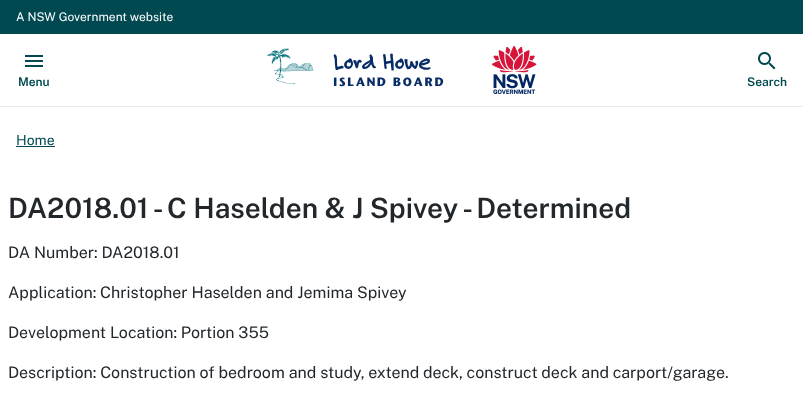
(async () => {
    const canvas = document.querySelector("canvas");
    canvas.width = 803;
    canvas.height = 401;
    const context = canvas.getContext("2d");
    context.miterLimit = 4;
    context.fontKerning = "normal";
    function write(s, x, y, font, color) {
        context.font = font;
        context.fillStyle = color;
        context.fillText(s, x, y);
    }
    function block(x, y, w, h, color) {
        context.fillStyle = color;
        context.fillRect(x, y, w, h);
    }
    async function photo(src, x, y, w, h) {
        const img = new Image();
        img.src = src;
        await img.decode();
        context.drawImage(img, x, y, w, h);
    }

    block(0, 0, 803, 401, "rgb(255, 255, 255)");
    block(0, 0, 803, 34, "rgb(0, 73, 80)");
    write("A NSW Government website", 16, 21, "12px Public Sans", "rgb(255, 255, 255)");
    block(0, 106, 803, 1, "rgb(235, 235, 235)");
    await photo("media/1.png", 25, 55, 18, 12);
    write("Menu", 18, 86, "600 12px Public Sans", "rgb(0, 73, 80)");
    await photo("media/2.png", 267, 48, 47, 37);
    write("Lord Howe", 333, 69, "bold 24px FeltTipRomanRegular", "rgb(7, 44, 104)");
    context.letterSpacing = "1.6px";
    write("ISLAND BOARD", 333, 86, "bold 11.25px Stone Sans", "rgb(7, 44, 104)");
    await photo("media/3.png", 492, 46, 45, 48);
    await photo("media/4.png", 758, 52, 18, 18);
    context.letterSpacing = "0px";
    write("Search", 747, 86, "600 12px Public Sans", "rgb(0, 73, 80)");
    write("Home", 16, 145, "14px Public Sans", "rgb(0, 73, 80)");
    block(16, 146, 39, 1, "rgb(0, 73, 80)");
    write("DA2018.01 - C Haselden & J Spivey - Determined", 8, 218, "600 28px Public Sans", "rgb(34, 39, 43)");
    write("DA Number: DA2018.01", 8, 258, "16px Public Sans", "rgb(34, 39, 43)");
    write("Application: Christopher Haselden and Jemima Spivey", 8, 298, "16px Public Sans", "rgb(34, 39, 43)");
    write("Development Location: Portion 355", 8, 338, "16px Public Sans", "rgb(34, 39, 43)");
    write("Description: Construction of bedroom and study, extend deck, construct deck and carport/garage.", 8, 378, "16px Public Sans", "rgb(34, 39, 43)");
})();
